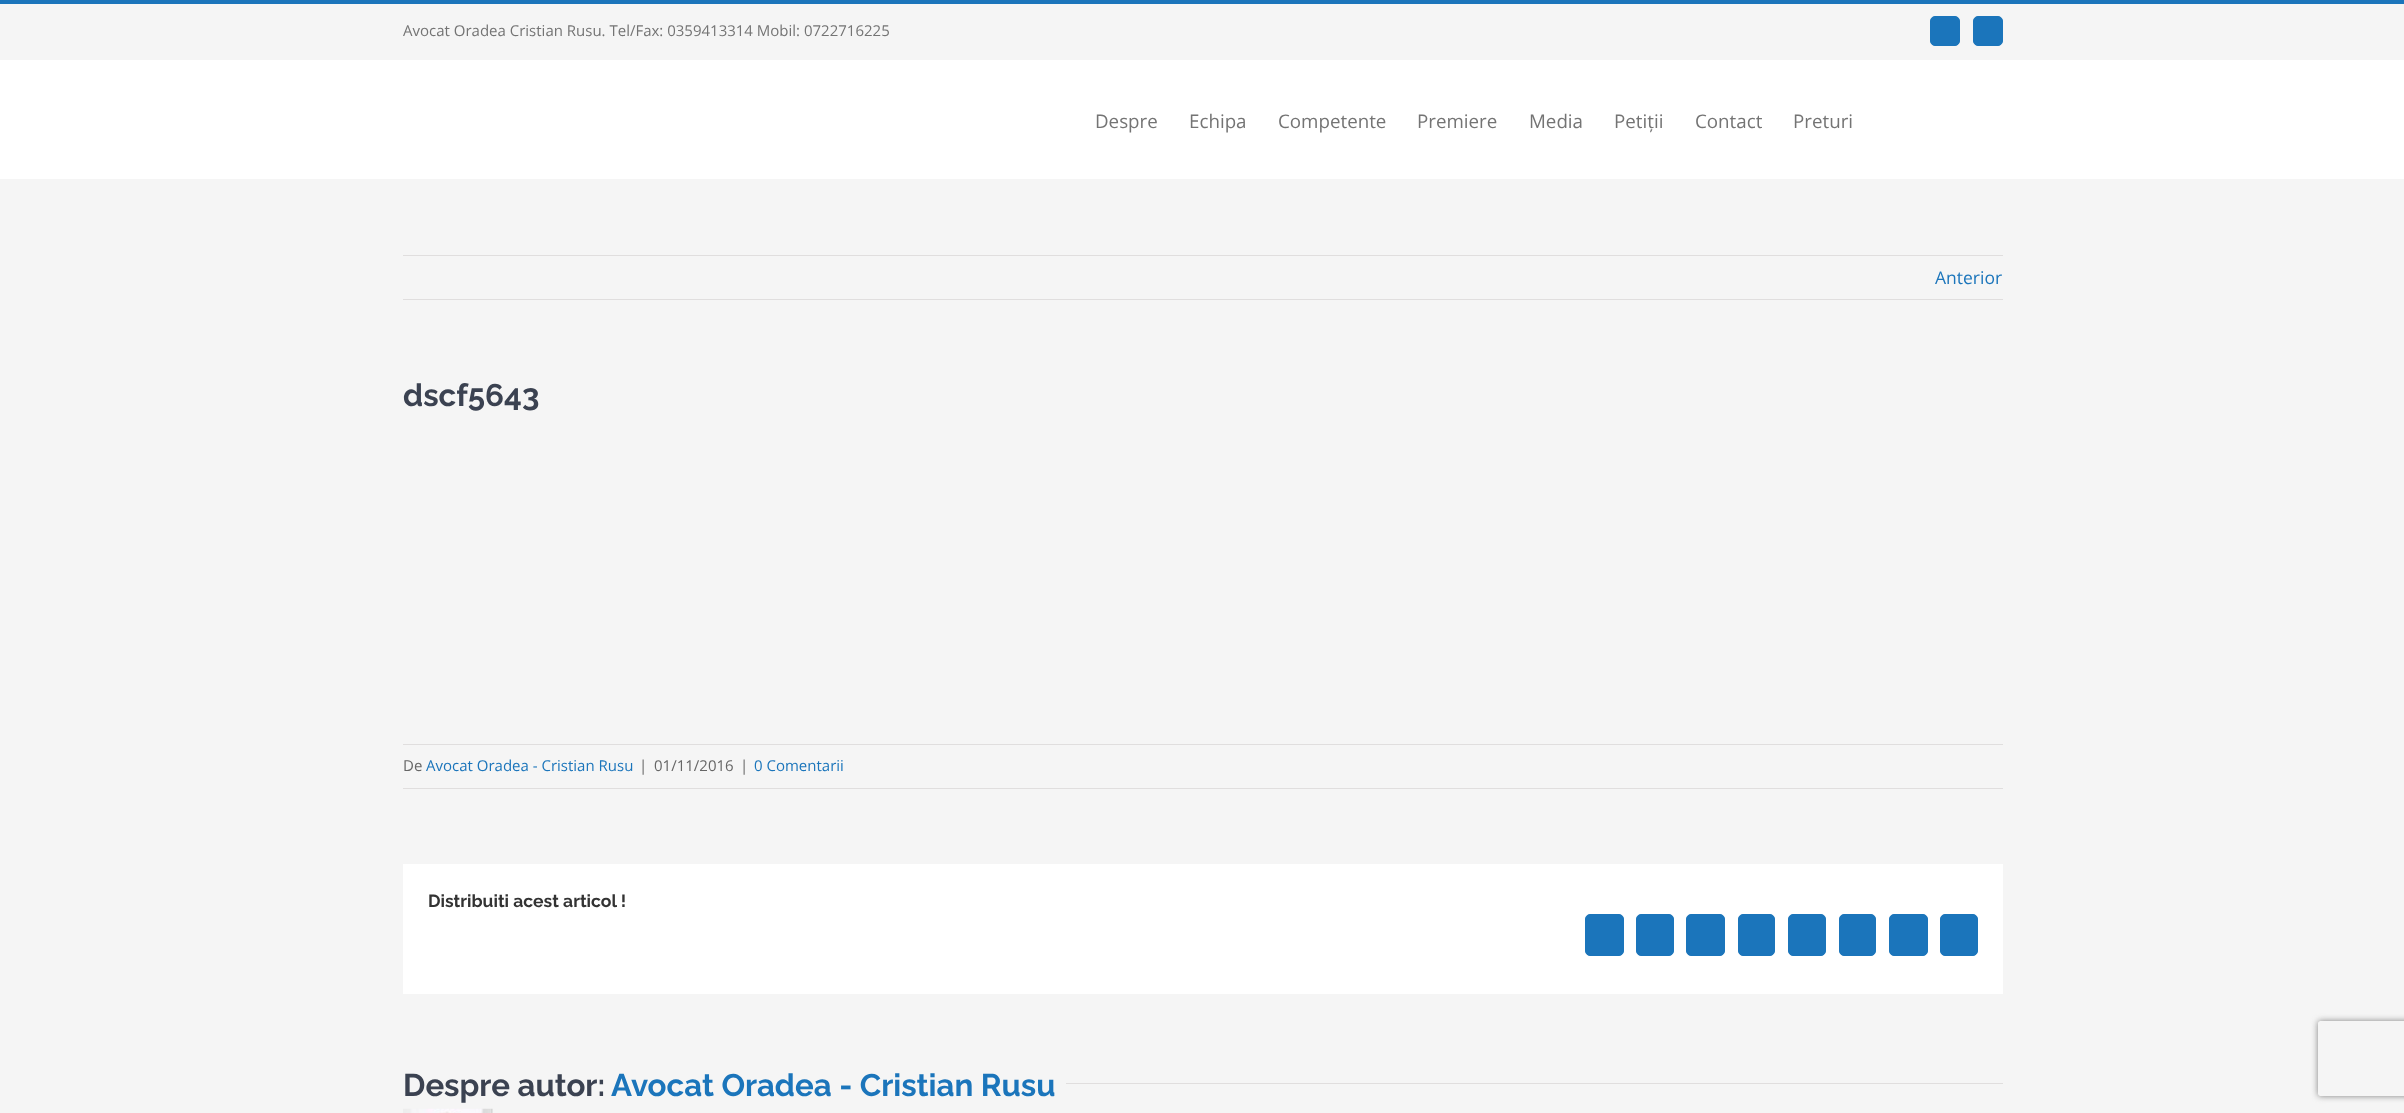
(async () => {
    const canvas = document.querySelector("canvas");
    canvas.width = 2404;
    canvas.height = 1113;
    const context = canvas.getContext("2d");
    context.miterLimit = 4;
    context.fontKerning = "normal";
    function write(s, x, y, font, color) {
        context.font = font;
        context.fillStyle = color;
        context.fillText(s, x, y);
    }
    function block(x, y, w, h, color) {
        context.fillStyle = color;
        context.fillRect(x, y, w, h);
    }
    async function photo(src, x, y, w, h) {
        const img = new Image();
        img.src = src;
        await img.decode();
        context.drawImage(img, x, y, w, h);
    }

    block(0, 0, 2404, 1113, "rgb(245, 245, 245)");
    block(0, 0, 2404, 4, "rgb(27, 117, 187)");
    write("Avocat Oradea Cristian Rusu. Tel/Fax: 0359413314 Mobil: 0722716225", 403, 36, "15px Open Sans", "rgb(116, 116, 116)");
    context.fillStyle = "rgb(27, 117, 187)";
    context.beginPath();
    context.roundRect(1930.5, 16.5, 29, 29, 4.5);
    context.fill();
    context.strokeStyle = "rgb(27, 117, 187)";
    context.stroke();
    context.beginPath();
    context.roundRect(1973.5, 16.5, 29, 29, 4.5);
    context.fill();
    context.stroke();
    block(0, 60, 2404, 119, "rgb(255, 255, 255)");
    write("Despre", 1095, 128, "18.75px Open Sans", "rgb(116, 116, 116)");
    write("Echipa", 1189, 128, "18.75px Open Sans", "rgb(116, 116, 116)");
    write("Competente", 1278, 128, "18.75px Open Sans", "rgb(116, 116, 116)");
    write("Premiere", 1417, 128, "18.75px Open Sans", "rgb(116, 116, 116)");
    write("Media", 1529, 128, "18.75px Open Sans", "rgb(116, 116, 116)");
    write("Petiții", 1614, 128, "18.75px Open Sans", "rgb(116, 116, 116)");
    write("Contact", 1695, 128, "18.75px Open Sans", "rgb(116, 116, 116)");
    write("Preturi", 1793, 128, "18.75px Open Sans", "rgb(116, 116, 116)");
    block(403, 255, 1600, 1, "rgb(224, 222, 222)");
    block(403, 299, 1600, 1, "rgb(224, 222, 222)");
    write("Anterior", 1935, 284, "17.5px Open Sans", "rgb(27, 117, 187)");
    write("dscf5643", 403, 406, "100 31.25px Raleway", "rgb(59, 66, 81)");
    block(403, 744, 1600, 1, "rgb(224, 222, 222)");
    block(403, 788, 1600, 1, "rgb(224, 222, 222)");
    write("De", 403, 771, "15px Open Sans", "rgb(102, 102, 102)");
    write("Avocat Oradea - Cristian Rusu", 426, 771, "15px Open Sans", "rgb(27, 117, 187)");
    write("|", 639, 771, "15px Open Sans", "rgb(102, 102, 102)");
    write("01/11/2016", 654, 771, "15px Open Sans", "rgb(102, 102, 102)");
    write("|", 740, 771, "15px Open Sans", "rgb(102, 102, 102)");
    write("0 Comentarii", 754, 771, "15px Open Sans", "rgb(27, 117, 187)");
    block(403, 864, 1600, 130, "rgb(255, 255, 255)");
    write("Distribuiti acest articol !", 428, 907, "100 17.5px Raleway", "rgb(51, 51, 51)");
    context.fillStyle = "rgb(27, 117, 187)";
    context.beginPath();
    context.roundRect(1585.5, 914.5, 38, 41, 4.5);
    context.fill();
    context.stroke();
    context.beginPath();
    context.roundRect(1636.5, 914.5, 37, 41, 4.5);
    context.fill();
    context.stroke();
    context.beginPath();
    context.roundRect(1686.5, 914.5, 38, 41, 4.5);
    context.fill();
    context.stroke();
    context.beginPath();
    context.roundRect(1738.5, 914.5, 36, 41, 4.5);
    context.fill();
    context.stroke();
    context.beginPath();
    context.roundRect(1788.5, 914.5, 37, 41, 4.5);
    context.fill();
    context.stroke();
    context.beginPath();
    context.roundRect(1839.5, 914.5, 36, 41, 4.5);
    context.fill();
    context.stroke();
    context.beginPath();
    context.roundRect(1889.5, 914.5, 38, 41, 4.5);
    context.fill();
    context.stroke();
    context.beginPath();
    context.roundRect(1940.5, 914.5, 37, 41, 4.5);
    context.fill();
    context.stroke();
    write("Despre autor:", 403, 1096, "100 31.25px Raleway", "rgb(59, 66, 81)");
    write("Avocat Oradea - Cristian Rusu", 611, 1096, "100 31.25px Raleway", "rgb(27, 117, 187)");
    block(1066, 1083, 937, 1, "rgb(224, 222, 222)");
    await photo("media/1.png", 403, 1108, 90, 5);
    context.save();
    context.beginPath();
    context.moveTo(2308, 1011);
    context.lineTo(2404, 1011);
    context.lineTo(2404, 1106);
    context.lineTo(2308, 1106);
    context.closePath();
    context.moveTo(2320.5, 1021);
    context.lineTo(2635.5, 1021);
    context.bezierCurveTo(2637, 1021, 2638, 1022, 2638, 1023.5);
    context.lineTo(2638, 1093.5);
    context.bezierCurveTo(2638, 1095, 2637, 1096, 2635.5, 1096);
    context.lineTo(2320.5, 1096);
    context.bezierCurveTo(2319, 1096, 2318, 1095, 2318, 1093.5);
    context.lineTo(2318, 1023.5);
    context.bezierCurveTo(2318, 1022, 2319, 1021, 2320.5, 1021);
    context.closePath();
    context.clip("evenodd");
    context.fillStyle = "rgb(128, 128, 128)";
    context.filter = "blur(3px)";
    context.beginPath();
    context.roundRect(2318, 1021, 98, 75, 2.5);
    context.fill();
    context.filter = "none";
    context.restore();
})();
